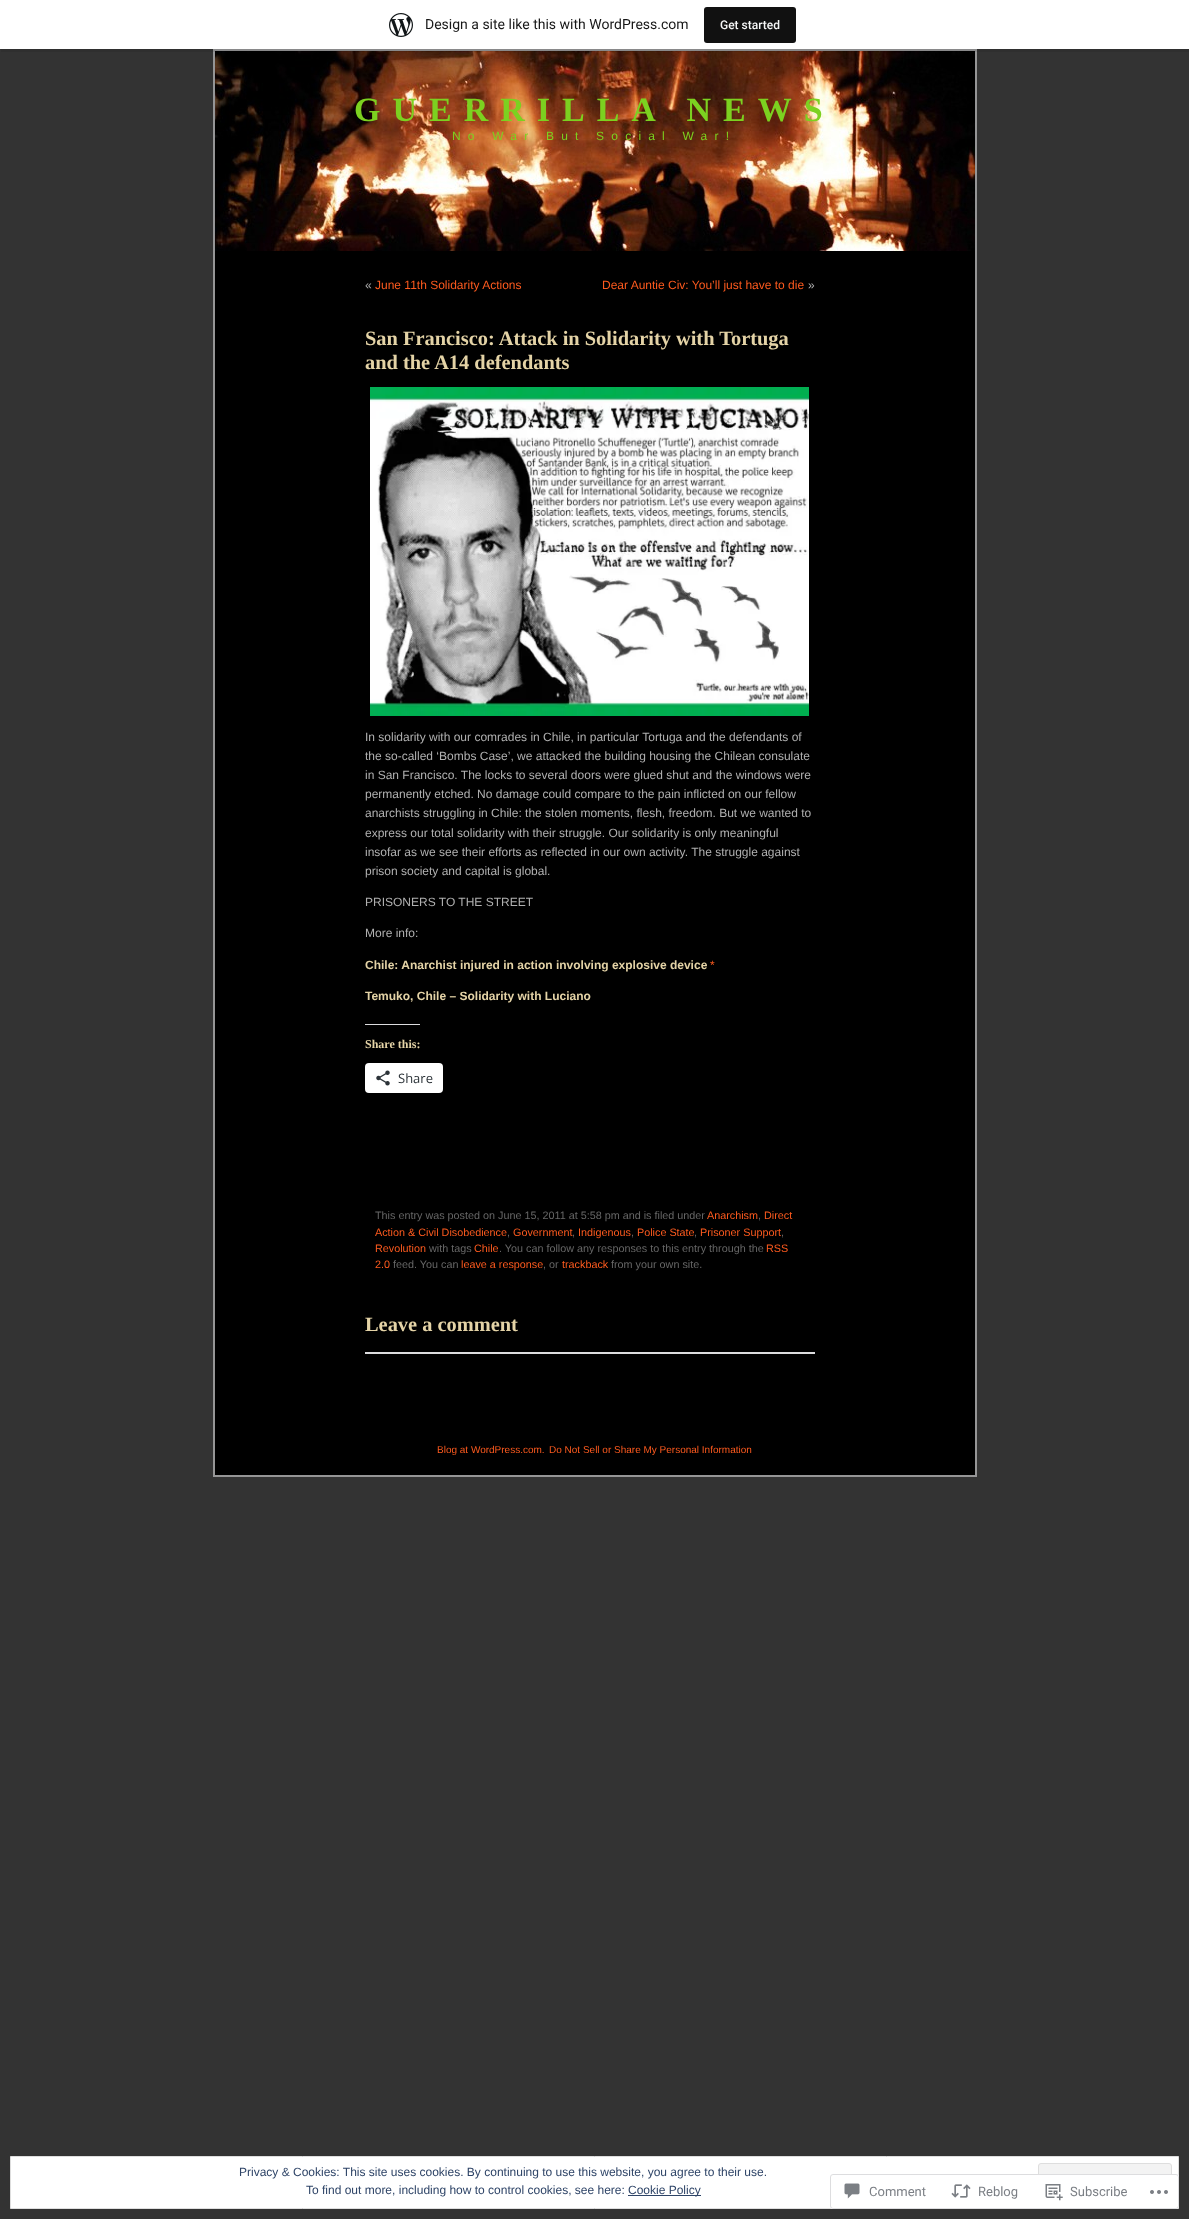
(async () => {
    const canvas = document.querySelector("canvas");
    canvas.width = 1189;
    canvas.height = 2219;
    const context = canvas.getContext("2d");
    context.miterLimit = 4;
    context.fontKerning = "normal";
    function write(s, x, y, font, color) {
        context.font = font;
        context.fillStyle = color;
        context.fillText(s, x, y);
    }
    function block(x, y, w, h, color) {
        context.fillStyle = color;
        context.fillRect(x, y, w, h);
    }
    function card(x, y, w, h, r, color) {
        context.fillStyle = color;
        context.beginPath();
        context.roundRect(x, y, w, h, r);
        context.fill();
    }
    async function photo(src, x, y, w, h) {
        const img = new Image();
        img.src = src;
        await img.decode();
        context.drawImage(img, x, y, w, h);
    }

    block(0, 0, 1189, 2219, "rgb(51, 51, 51)");
    block(215, 251, 760, 1224, "rgb(0, 0, 0)");
    context.strokeStyle = "rgb(149, 149, 150)";
    context.lineWidth = 2;
    context.strokeRect(214, 50, 762, 1426);
    await photo("media/2.png", 215, 51, 760, 200);
    context.fillStyle = "rgba(0, 0, 0, 0.08)";
    context.beginPath();
    context.moveTo(1, 49);
    context.lineTo(1, 52);
    context.lineTo(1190, 52);
    context.lineTo(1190, 3);
    context.lineTo(1189, 3);
    context.lineTo(1189, 49);
    context.closePath();
    context.fill();
    block(0, 0, 1189, 49, "rgb(255, 255, 255)");
    await photo("media/1.png", 389, 13, 24, 24);
    write("Design a site like this with WordPress.com", 425, 29, "14px Roboto", "rgb(23, 23, 23)");
    card(704, 7, 92, 36, 3, "rgb(17, 17, 17)");
    write("Get started", 720, 29, "500 12px Roboto", "rgb(246, 247, 247)");
    context.letterSpacing = "12px";
    write("GUERRILLA NEWS", 354, 121, "bold 34px Liberation Serif", "rgb(124, 209, 32)");
    context.letterSpacing = "7.2px";
    write("No War But Social War!", 452, 140, "12px Liberation Sans", "rgb(124, 209, 32)");
    context.letterSpacing = "0px";
    write("«", 365, 289, "12px Liberation Sans", "rgb(176, 176, 176)");
    write("June 11th Solidarity Actions", 375, 289, "12px Liberation Sans", "rgb(253, 90, 30)");
    write("Dear Auntie Civ: You’ll just have to die", 602, 289, "12px Liberation Sans", "rgb(253, 90, 30)");
    write("»", 808, 289, "12px Liberation Sans", "rgb(176, 176, 176)");
    write("San Francisco: Attack in Solidarity with Tortuga", 365, 345, "bold 20.4px Liberation Serif", "rgb(228, 211, 166)");
    write("and the A14 defendants", 365, 369, "bold 20.4px Liberation Serif", "rgb(228, 211, 166)");
    await photo("media/3.png", 370, 387, 439, 329);
    write("In solidarity with our comrades in Chile, in particular Tortuga and the defendants of", 365, 741, "12px Liberation Sans", "rgb(176, 176, 176)");
    write("the so-called ‘Bombs Case’, we attacked the building housing the Chilean consulate", 365, 760, "12px Liberation Sans", "rgb(176, 176, 176)");
    write("in San Francisco. The locks to several doors were glued shut and the windows were", 365, 779, "12px Liberation Sans", "rgb(176, 176, 176)");
    write("permanently etched. No damage could compare to the pain inflicted on our fellow", 365, 798, "12px Liberation Sans", "rgb(176, 176, 176)");
    write("anarchists struggling in Chile: the stolen moments, flesh, freedom. But we wanted to", 365, 817, "12px Liberation Sans", "rgb(176, 176, 176)");
    write("express our total solidarity with their struggle. Our solidarity is only meaningful", 365, 837, "12px Liberation Sans", "rgb(176, 176, 176)");
    write("insofar as we see their efforts as reflected in our own activity. The struggle against", 365, 856, "12px Liberation Sans", "rgb(176, 176, 176)");
    write("prison society and capital is global.", 365, 875, "12px Liberation Sans", "rgb(176, 176, 176)");
    write("PRISONERS TO THE STREET", 365, 906, "12px Liberation Sans", "rgb(176, 176, 176)");
    write("More info:", 365, 937, "12px Liberation Sans", "rgb(176, 176, 176)");
    write("Chile: Anarchist injured in action involving explosive device", 365, 969, "bold 12px Liberation Sans", "rgb(228, 211, 166)");
    write("*", 710, 969, "12px Liberation Sans", "rgb(253, 90, 30)");
    write("Temuko, Chile – Solidarity with Luciano", 365, 1000, "bold 12px Liberation Sans", "rgb(228, 211, 166)");
    block(365, 1024, 55, 1, "rgb(220, 220, 222)");
    write("Share this:", 365, 1048, "bold 12px Liberation Serif", "rgb(228, 211, 166)");
    card(365, 1063, 78, 30, 4, "rgb(255, 255, 255)");
    await photo("media/4.png", 376, 1070, 14, 16);
    write("Share", 398, 1083, "13px Open Sans", "rgb(44, 51, 56)");
    write("This entry was posted on June 15, 2011 at 5:58 pm and is filed under", 375, 1219, "10.8px Liberation Sans", "rgb(102, 102, 102)");
    write("Anarchism", 707, 1219, "10.8px Liberation Sans", "rgb(253, 90, 30)");
    write(",", 758, 1219, "10.8px Liberation Sans", "rgb(102, 102, 102)");
    write("Direct", 764, 1219, "10.8px Liberation Sans", "rgb(253, 90, 30)");
    write("Action & Civil Disobedience", 375, 1236, "10.8px Liberation Sans", "rgb(253, 90, 30)");
    write(",", 507, 1236, "10.8px Liberation Sans", "rgb(102, 102, 102)");
    write("Government", 513, 1236, "10.8px Liberation Sans", "rgb(253, 90, 30)");
    write(",", 572, 1236, "10.8px Liberation Sans", "rgb(102, 102, 102)");
    write("Indigenous", 578, 1236, "10.8px Liberation Sans", "rgb(253, 90, 30)");
    write(",", 631, 1236, "10.8px Liberation Sans", "rgb(102, 102, 102)");
    write("Police State", 637, 1236, "10.8px Liberation Sans", "rgb(253, 90, 30)");
    write(",", 694, 1236, "10.8px Liberation Sans", "rgb(102, 102, 102)");
    write("Prisoner Support", 700, 1236, "10.8px Liberation Sans", "rgb(253, 90, 30)");
    write(",", 781, 1236, "10.8px Liberation Sans", "rgb(102, 102, 102)");
    write("Revolution", 375, 1252, "10.8px Liberation Sans", "rgb(253, 90, 30)");
    write("with tags", 429, 1252, "10.8px Liberation Sans", "rgb(102, 102, 102)");
    write("Chile", 474, 1252, "10.8px Liberation Sans", "rgb(253, 90, 30)");
    write(". You can follow any responses to this entry through the", 499, 1252, "10.8px Liberation Sans", "rgb(102, 102, 102)");
    write("RSS", 766, 1252, "10.8px Liberation Sans", "rgb(253, 90, 30)");
    write("2.0", 375, 1268, "10.8px Liberation Sans", "rgb(253, 90, 30)");
    write("feed. You can", 393, 1268, "10.8px Liberation Sans", "rgb(102, 102, 102)");
    write("leave a response", 461, 1268, "10.8px Liberation Sans", "rgb(253, 90, 30)");
    write(", or", 543, 1268, "10.8px Liberation Sans", "rgb(102, 102, 102)");
    write("trackback", 562, 1268, "10.8px Liberation Sans", "rgb(253, 90, 30)");
    write("from your own site.", 611, 1268, "10.8px Liberation Sans", "rgb(102, 102, 102)");
    write("Leave a comment", 365, 1331, "bold 20.4px Liberation Serif", "rgb(228, 211, 166)");
    block(365, 1352, 450, 2, "rgb(220, 220, 222)");
    write("Blog at WordPress.com.", 437, 1453, "10px Liberation Sans", "rgb(253, 90, 30)");
    write("Do Not Sell or Share My Personal Information", 549, 1453, "10px Liberation Sans", "rgb(253, 90, 30)");
    context.fillStyle = "rgb(255, 255, 255)";
    context.beginPath();
    context.rect(10.5, 2156.5, 1168, 52);
    context.fill();
    context.strokeStyle = "rgb(222, 222, 222)";
    context.lineWidth = 1;
    context.stroke();
    write("Privacy & Cookies: This site uses cookies. By continuing to use this website, you agree to their use.", 239, 2176, "12px Liberation Sans", "rgb(46, 68, 103)");
    context.fillStyle = "rgb(243, 243, 243)";
    context.beginPath();
    context.roundRect(1038.5, 2163.5, 133, 38, 2.5);
    context.fill();
    context.stroke();
    write("To find out more, including how to control cookies, see here:", 306, 2194, "12px Liberation Sans", "rgb(46, 68, 103)");
    block(628, 2195, 73, 1, "rgb(46, 68, 103)");
    write("Cookie Policy", 628, 2194, "12px Liberation Sans", "rgb(46, 68, 103)");
    card(830, 2174, 349, 35, 3, "rgba(255, 255, 255, 0.98)");
    context.beginPath();
    context.roundRect(830.5, 2174.5, 348, 34, 2.5);
    context.strokeStyle = "rgba(220, 220, 222, 0.98)";
    context.stroke();
    await photo("media/5.png", 844, 2183, 16, 16);
    write("Comment", 869, 2196, "13px Roboto", "rgb(123, 127, 133)");
    await photo("media/6.png", 951, 2184, 20, 14);
    write("Reblog", 978, 2196, "13px Roboto", "rgb(123, 127, 133)");
    await photo("media/7.png", 1045, 2184, 18, 17);
    write("Subscribe", 1070, 2196, "13px Roboto", "rgb(123, 127, 133)");
    await photo("media/8.png", 1150, 2190, 18, 4);
})();
